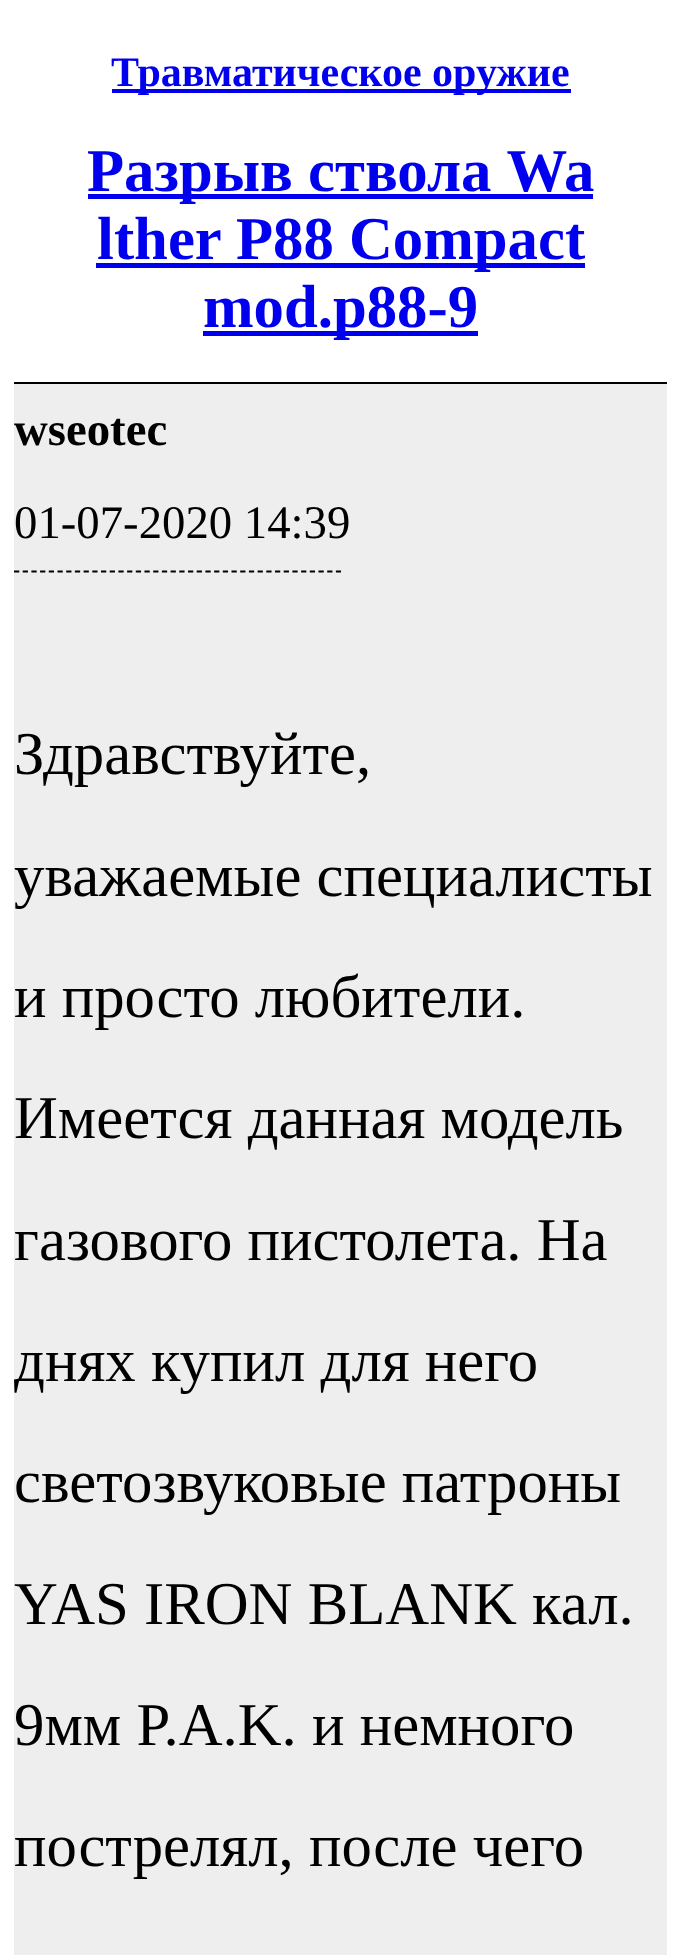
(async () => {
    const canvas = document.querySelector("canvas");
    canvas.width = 694;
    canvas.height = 1955;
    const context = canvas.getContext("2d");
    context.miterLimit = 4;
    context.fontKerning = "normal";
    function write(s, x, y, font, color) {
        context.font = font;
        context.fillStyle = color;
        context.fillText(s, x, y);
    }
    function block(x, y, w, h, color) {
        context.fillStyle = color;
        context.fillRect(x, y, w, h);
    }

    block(0, 0, 694, 1955, "rgb(255, 255, 255)");
    block(112, 89, 459, 4, "rgb(0, 0, 238)");
    write("Травматическое оружие", 111, 86, "bold 42px Liberation Serif", "rgb(0, 0, 238)");
    block(88, 194, 505, 5, "rgb(0, 0, 238)");
    write("Разрыв ствола Wa", 87, 191, "bold 60.75px Liberation Serif", "rgb(0, 0, 238)");
    block(96, 263, 489, 5, "rgb(0, 0, 238)");
    write("lther P88 Compact", 97, 259, "bold 60.75px Liberation Serif", "rgb(0, 0, 238)");
    block(203, 331, 275, 5, "rgb(0, 0, 238)");
    write("mod.p88-9", 203, 327, "bold 60.75px Liberation Serif", "rgb(0, 0, 238)");
    block(14, 384, 653, 1571, "rgb(238, 238, 238)");
    block(14, 382, 653, 2, "rgb(0, 0, 0)");
    context.beginPath();
    context.moveTo(14, 571.5);
    context.lineTo(341, 571.5);
    context.strokeStyle = "rgb(0, 0, 0)";
    context.lineWidth = 1.8;
    context.setLineDash([5.25, 3.45]);
    context.stroke();
    write("wseotec", 14, 445, "bold 46.75px Liberation Serif", "rgb(0, 0, 0)");
    write("01-07-2020 14:39", 14, 538, "46.75px Liberation Serif", "rgb(0, 0, 0)");
    write("Здравствуйте,", 14, 774, "60.75px Liberation Serif", "rgb(0, 0, 0)");
    write("уважаемые специалисты", 14, 896, "60.75px Liberation Serif", "rgb(0, 0, 0)");
    write("и просто любители.", 14, 1017, "60.75px Liberation Serif", "rgb(0, 0, 0)");
    write("Имеется данная модель", 14, 1138, "60.75px Liberation Serif", "rgb(0, 0, 0)");
    write("газового пистолета. На", 14, 1260, "60.75px Liberation Serif", "rgb(0, 0, 0)");
    write("днях купил для него", 14, 1381, "60.75px Liberation Serif", "rgb(0, 0, 0)");
    write("светозвуковые патроны", 14, 1502, "60.75px Liberation Serif", "rgb(0, 0, 0)");
    write("YAS IRON BLANK кал.", 14, 1624, "60.75px Liberation Serif", "rgb(0, 0, 0)");
    write("9мм P.A.K. и немного", 14, 1745, "60.75px Liberation Serif", "rgb(0, 0, 0)");
    write("пострелял, после чего", 14, 1866, "60.75px Liberation Serif", "rgb(0, 0, 0)");
})();
